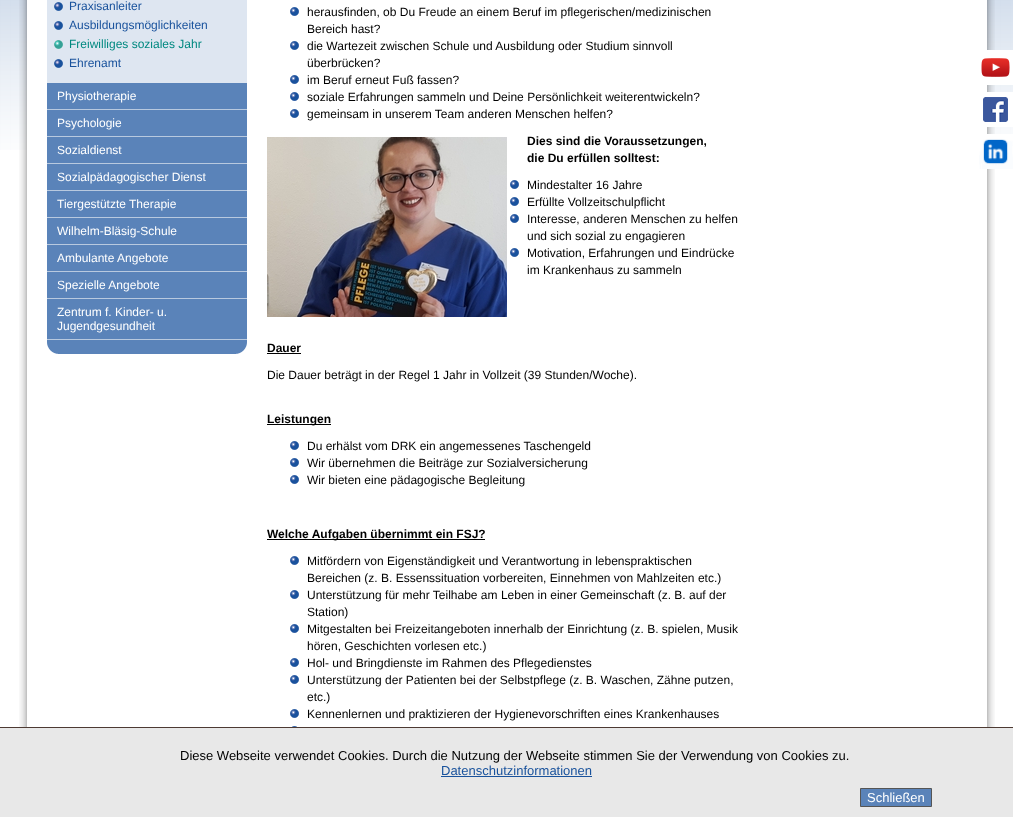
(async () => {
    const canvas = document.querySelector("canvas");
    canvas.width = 1013;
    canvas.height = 817;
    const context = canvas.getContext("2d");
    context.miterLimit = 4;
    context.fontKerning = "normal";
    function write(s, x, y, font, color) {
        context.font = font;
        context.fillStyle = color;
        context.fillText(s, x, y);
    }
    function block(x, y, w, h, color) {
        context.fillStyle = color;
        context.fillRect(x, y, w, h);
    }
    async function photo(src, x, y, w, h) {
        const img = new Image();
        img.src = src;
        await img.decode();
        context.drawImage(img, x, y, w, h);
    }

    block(0, 0, 1013, 817, "rgb(255, 255, 255)");
    await photo("media/1.png", 0, 0, 1013, 150);
    await photo("media/2.png", 19, 0, 976, 727);
    await photo("media/3.png", 47, 340, 200, 14);
    block(47, 83, 200, 256, "rgb(90, 131, 185)");
    block(47, 0, 200, 83, "rgb(222, 230, 241)");
    await photo("media/4.png", 54, 2, 9, 9);
    write("Praxisanleiter", 69, 10, "12px Liberation Sans", "rgb(25, 82, 156)");
    await photo("media/4.png", 54, 21, 9, 9);
    write("Ausbildungsmöglichkeiten", 69, 29, "12px Liberation Sans", "rgb(25, 82, 156)");
    await photo("media/5.png", 54, 40, 9, 9);
    write("Freiwilliges soziales Jahr", 69, 48, "12px Liberation Sans", "rgb(0, 137, 128)");
    await photo("media/4.png", 54, 59, 9, 9);
    write("Ehrenamt", 69, 67, "12px Liberation Sans", "rgb(25, 82, 156)");
    block(47, 109, 200, 1, "rgb(184, 201, 223)");
    write("Physiotherapie", 57, 100, "12px Liberation Sans", "rgb(255, 255, 255)");
    block(47, 136, 200, 1, "rgb(184, 201, 223)");
    write("Psychologie", 57, 127, "12px Liberation Sans", "rgb(255, 255, 255)");
    block(47, 163, 200, 1, "rgb(184, 201, 223)");
    write("Sozialdienst", 57, 154, "12px Liberation Sans", "rgb(255, 255, 255)");
    block(47, 190, 200, 1, "rgb(184, 201, 223)");
    write("Sozialpädagogischer Dienst", 57, 181, "12px Liberation Sans", "rgb(255, 255, 255)");
    block(47, 217, 200, 1, "rgb(184, 201, 223)");
    write("Tiergestützte Therapie", 57, 208, "12px Liberation Sans", "rgb(255, 255, 255)");
    block(47, 244, 200, 1, "rgb(184, 201, 223)");
    write("Wilhelm-Bläsig-Schule", 57, 235, "12px Liberation Sans", "rgb(255, 255, 255)");
    block(47, 271, 200, 1, "rgb(184, 201, 223)");
    write("Ambulante Angebote", 57, 262, "12px Liberation Sans", "rgb(255, 255, 255)");
    block(47, 298, 200, 1, "rgb(184, 201, 223)");
    write("Spezielle Angebote", 57, 289, "12px Liberation Sans", "rgb(255, 255, 255)");
    block(47, 339, 200, 1, "rgb(184, 201, 223)");
    write("Zentrum f. Kinder- u.", 57, 316, "12px Liberation Sans", "rgb(255, 255, 255)");
    write("Jugendgesundheit", 57, 330, "12px Liberation Sans", "rgb(255, 255, 255)");
    await photo("media/6.png", 290, 7, 9, 9);
    write("herausfinden, ob Du Freude an einem Beruf im pflegerischen/medizinischen", 307, 16, "12px Liberation Sans", "rgb(0, 0, 0)");
    write("Bereich hast?", 307, 33, "12px Liberation Sans", "rgb(0, 0, 0)");
    await photo("media/6.png", 290, 41, 9, 9);
    write("die Wartezeit zwischen Schule und Ausbildung oder Studium sinnvoll", 307, 50, "12px Liberation Sans", "rgb(0, 0, 0)");
    write("überbrücken?", 307, 67, "12px Liberation Sans", "rgb(0, 0, 0)");
    await photo("media/6.png", 290, 75, 9, 9);
    write("im Beruf erneut Fuß fassen?", 307, 84, "12px Liberation Sans", "rgb(0, 0, 0)");
    await photo("media/6.png", 290, 92, 9, 9);
    write("soziale Erfahrungen sammeln und Deine Persönlichkeit weiterentwickeln?", 307, 101, "12px Liberation Sans", "rgb(0, 0, 0)");
    await photo("media/6.png", 290, 109, 9, 9);
    write("gemeinsam in unserem Team anderen Menschen helfen?", 307, 118, "12px Liberation Sans", "rgb(0, 0, 0)");
    await photo("media/7.png", 267, 137, 240, 180);
    write("Dies sind die Voraussetzungen,", 527, 145, "bold 12px Liberation Sans", "rgb(0, 0, 0)");
    write("die Du erfüllen solltest:", 527, 162, "bold 12px Liberation Sans", "rgb(0, 0, 0)");
    await photo("media/6.png", 510, 180, 9, 9);
    write("Mindestalter 16 Jahre", 527, 189, "12px Liberation Sans", "rgb(0, 0, 0)");
    await photo("media/6.png", 510, 197, 9, 9);
    write("Erfüllte Vollzeitschulpflicht", 527, 206, "12px Liberation Sans", "rgb(0, 0, 0)");
    await photo("media/6.png", 510, 214, 9, 9);
    write("Interesse, anderen Menschen zu helfen", 527, 223, "12px Liberation Sans", "rgb(0, 0, 0)");
    write("und sich sozial zu engagieren", 527, 240, "12px Liberation Sans", "rgb(0, 0, 0)");
    await photo("media/6.png", 510, 248, 9, 9);
    write("Motivation, Erfahrungen und Eindrücke", 527, 257, "12px Liberation Sans", "rgb(0, 0, 0)");
    write("im Krankenhaus zu sammeln", 527, 274, "12px Liberation Sans", "rgb(0, 0, 0)");
    write("Dauer", 267, 352, "bold 12px Liberation Sans", "rgb(0, 0, 0)");
    block(267, 353, 34, 1, "rgb(0, 0, 0)");
    write("Die Dauer beträgt in der Regel 1 Jahr in Vollzeit (39 Stunden/Woche).", 267, 379, "12px Liberation Sans", "rgb(0, 0, 0)");
    block(267, 424, 64, 1, "rgb(0, 0, 0)");
    write("Leistungen", 267, 423, "bold 12px Liberation Sans", "rgb(0, 0, 0)");
    await photo("media/6.png", 290, 441, 9, 9);
    write("Du erhälst vom DRK ein angemessenes Taschengeld", 307, 450, "12px Liberation Sans", "rgb(0, 0, 0)");
    await photo("media/6.png", 290, 458, 9, 9);
    write("Wir übernehmen die Beiträge zur Sozialversicherung", 307, 467, "12px Liberation Sans", "rgb(0, 0, 0)");
    await photo("media/6.png", 290, 475, 9, 9);
    write("Wir bieten eine pädagogische Begleitung", 307, 484, "12px Liberation Sans", "rgb(0, 0, 0)");
    block(267, 539, 218, 1, "rgb(0, 0, 0)");
    write("Welche Aufgaben übernimmt ein FSJ?", 267, 538, "bold 12px Liberation Sans", "rgb(0, 0, 0)");
    await photo("media/6.png", 290, 556, 9, 9);
    write("Mitfördern von Eigenständigkeit und Verantwortung in lebenspraktischen", 307, 565, "12px Liberation Sans", "rgb(0, 0, 0)");
    write("Bereichen (z. B. Essenssituation vorbereiten, Einnehmen von Mahlzeiten etc.)", 307, 582, "12px Liberation Sans", "rgb(0, 0, 0)");
    await photo("media/6.png", 290, 590, 9, 9);
    write("Unterstützung für mehr Teilhabe am Leben in einer Gemeinschaft (z. B. auf der", 307, 599, "12px Liberation Sans", "rgb(0, 0, 0)");
    write("Station)", 307, 616, "12px Liberation Sans", "rgb(0, 0, 0)");
    await photo("media/6.png", 290, 624, 9, 9);
    write("Mitgestalten bei Freizeitangeboten innerhalb der Einrichtung (z. B. spielen, Musik", 307, 633, "12px Liberation Sans", "rgb(0, 0, 0)");
    write("hören, Geschichten vorlesen etc.)", 307, 650, "12px Liberation Sans", "rgb(0, 0, 0)");
    await photo("media/6.png", 290, 658, 9, 9);
    write("Hol- und Bringdienste im Rahmen des Pflegedienstes", 307, 667, "12px Liberation Sans", "rgb(0, 0, 0)");
    await photo("media/6.png", 290, 675, 9, 9);
    write("Unterstützung der Patienten bei der Selbstpflege (z. B. Waschen, Zähne putzen,", 307, 684, "12px Liberation Sans", "rgb(0, 0, 0)");
    write("etc.)", 307, 701, "12px Liberation Sans", "rgb(0, 0, 0)");
    await photo("media/6.png", 290, 709, 9, 9);
    write("Kennenlernen und praktizieren der Hygienevorschriften eines Krankenhauses", 307, 718, "12px Liberation Sans", "rgb(0, 0, 0)");
    await photo("media/8.png", 292, 726, 5, 1);
    await photo("media/9.png", 981, 50, 32, 35);
    await photo("media/10.png", 983, 92, 30, 35);
    await photo("media/11.png", 979, 134, 34, 35);
    block(0, 728, 1013, 89, "rgb(232, 232, 232)");
    block(0, 727, 1013, 1, "rgb(77, 58, 51)");
    write("Diese Webseite verwendet Cookies. Durch die Nutzung der Webseite stimmen Sie der Verwendung von Cookies zu.", 180, 760, "13px Liberation Sans", "rgb(0, 0, 0)");
    write("Datenschutzinformationen", 441, 775, "13px Liberation Sans", "rgb(25, 82, 156)");
    block(441, 776, 151, 1, "rgb(25, 82, 156)");
    context.fillStyle = "rgb(90, 131, 185)";
    context.beginPath();
    context.rect(860.5, 788.5, 71, 18);
    context.fill();
    context.strokeStyle = "rgb(85, 85, 85)";
    context.stroke();
    write("Schließen", 867, 802, "13px Liberation Sans", "rgb(255, 255, 255)");
})();
